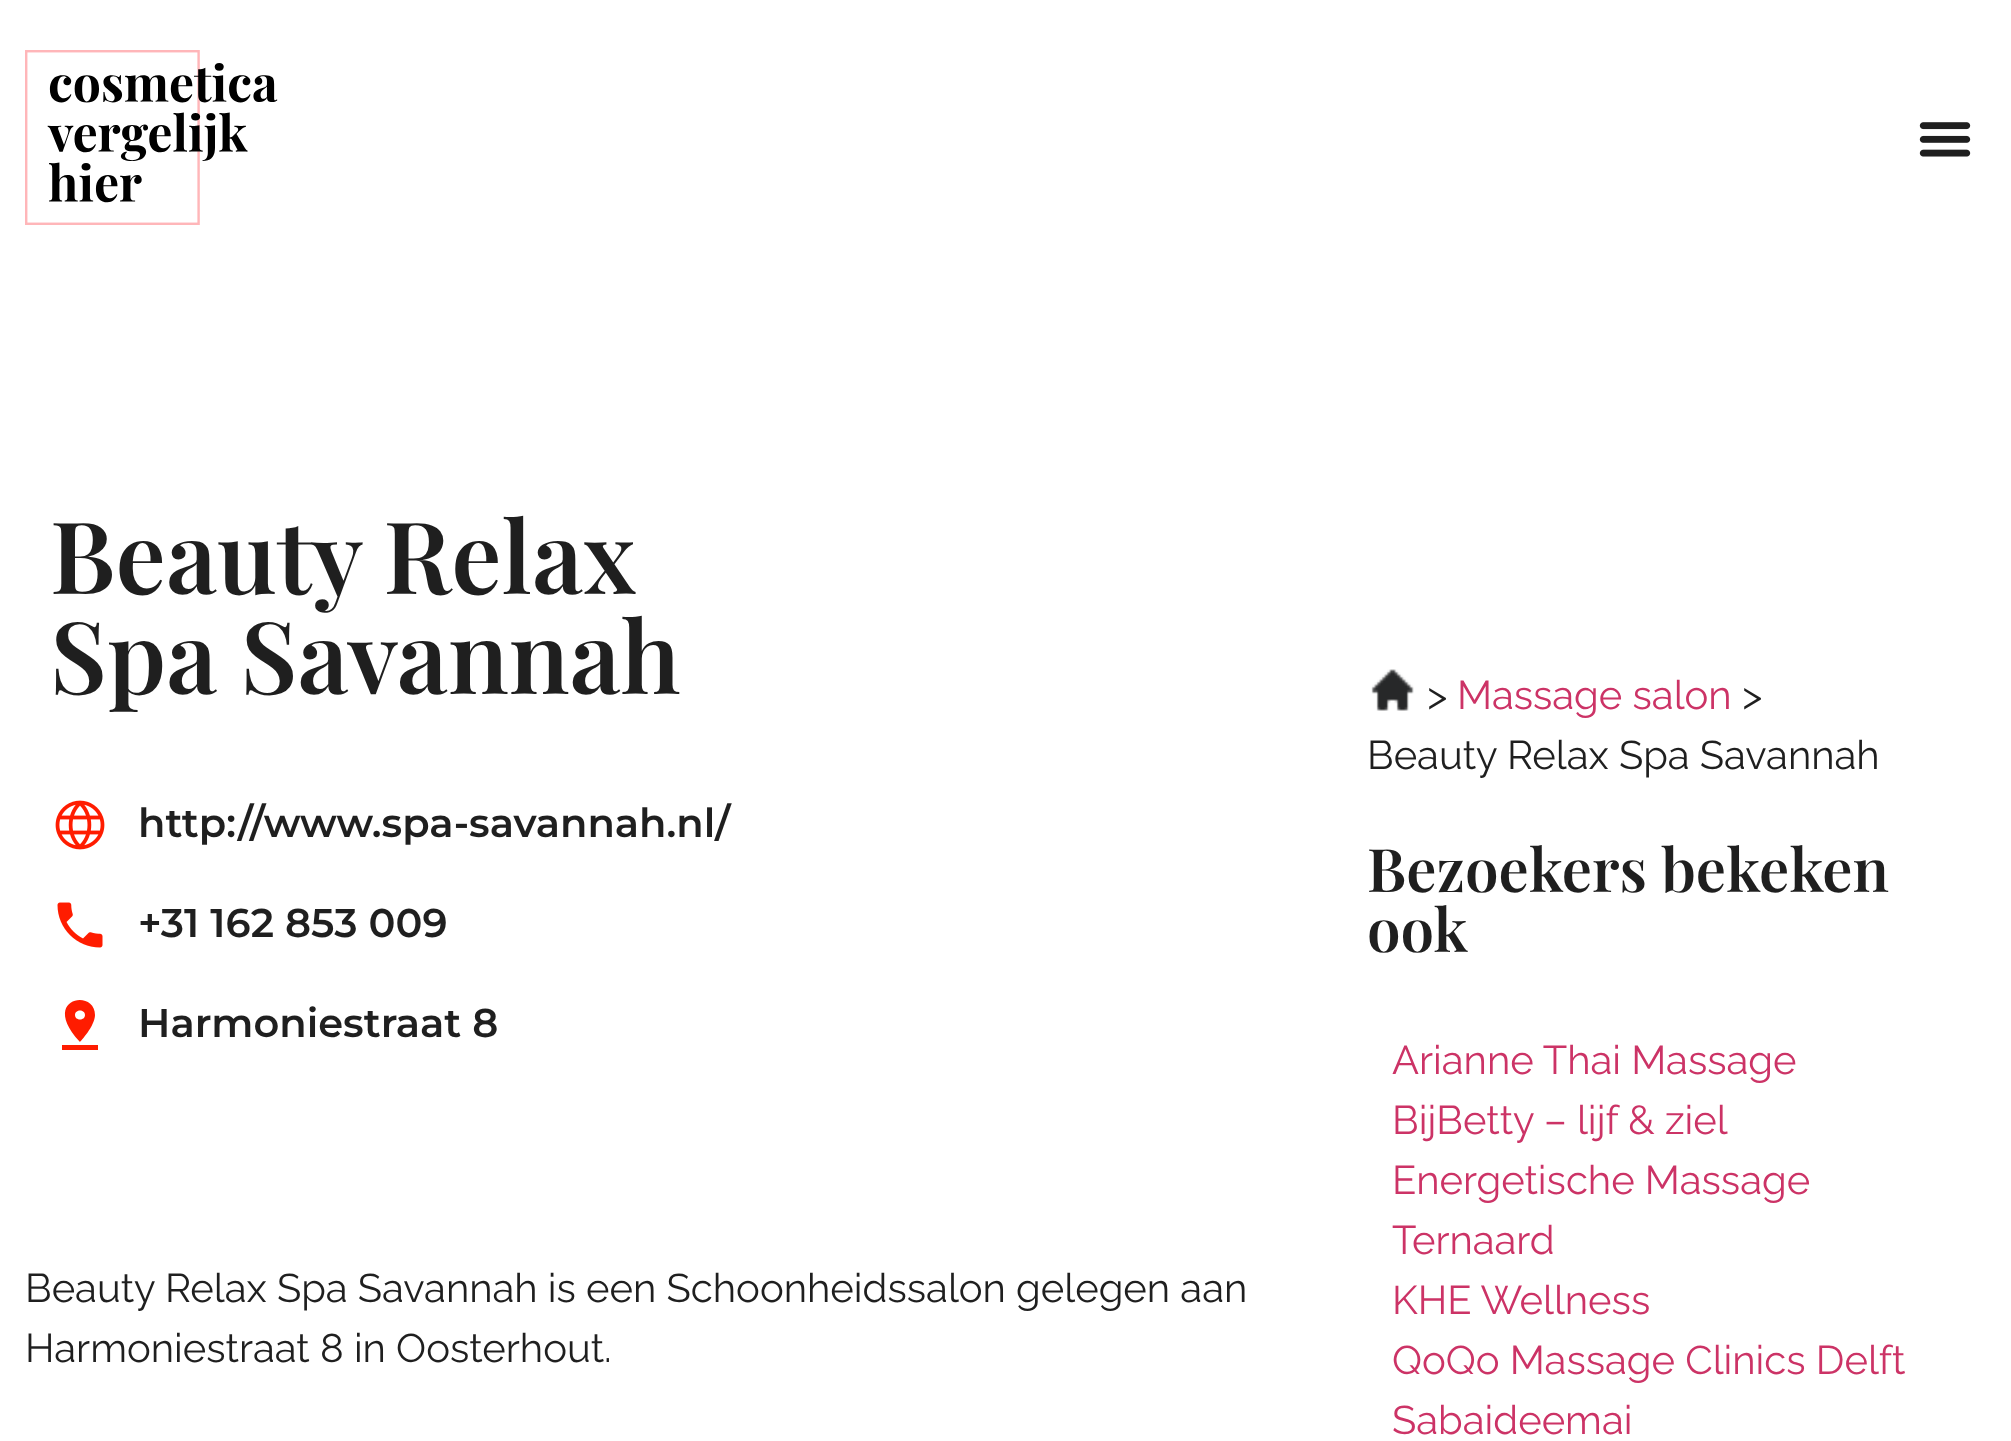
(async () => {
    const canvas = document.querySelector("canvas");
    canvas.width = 2011;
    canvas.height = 1441;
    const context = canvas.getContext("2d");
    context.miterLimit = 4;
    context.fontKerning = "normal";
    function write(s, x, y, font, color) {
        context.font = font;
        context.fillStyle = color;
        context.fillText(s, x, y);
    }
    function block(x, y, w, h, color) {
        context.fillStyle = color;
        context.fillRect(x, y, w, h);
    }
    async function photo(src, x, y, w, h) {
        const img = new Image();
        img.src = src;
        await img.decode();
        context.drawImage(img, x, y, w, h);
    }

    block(0, 0, 2011, 1441, "rgb(255, 255, 255)");
    await photo("media/1.png", 25, 50, 253, 175);
    await photo("media/2.png", 1919, 122, 52, 35);
    context.wordSpacing = "-1px";
    write("Beauty Relax", 50, 594, "600 100px Playfair Display", "rgb(31, 31, 31)");
    context.wordSpacing = "0px";
    write("Spa Savannah", 50, 694, "600 100px Playfair Display", "rgb(31, 31, 31)");
    await photo("media/3.png", 55, 800, 50, 50);
    write("http://www.spa-savannah.nl/", 138, 837, "600 40px Montserrat", "rgb(31, 31, 31)");
    await photo("media/4.png", 57, 902, 46, 46);
    write("+31 162 853 009", 138, 937, "600 40px Montserrat", "rgb(31, 31, 31)");
    context.fillStyle = "rgb(255, 28, 0)";
    context.beginPath();
    context.moveTo(95, 1015);
    context.bezierCurveTo(95, 988, 39, 998, 80, 1042);
    context.bezierCurveTo(80, 1042, 95, 1026, 95, 1015);
    context.closePath();
    context.moveTo(75, 1015);
    context.bezierCurveTo(75, 1009, 85, 1009, 85, 1015);
    context.bezierCurveTo(85, 1021, 75, 1021, 75, 1015);
    context.closePath();
    context.moveTo(62, 1045);
    context.lineTo(62, 1050);
    context.lineTo(98, 1050);
    context.lineTo(98, 1045);
    context.closePath();
    context.fill();
    write("Harmoniestraat 8", 138, 1037, "600 40px Montserrat", "rgb(31, 31, 31)");
    write("Beauty Relax Spa Savannah is een Schoonheidssalon gelegen aan", 25, 1302, "40px Raleway", "rgb(31, 31, 31)");
    write("Harmoniestraat 8 in Oosterhout.", 25, 1362, "40px Raleway", "rgb(31, 31, 31)");
    await photo("media/5.png", 1371, 669, 43, 42);
    write(">", 1427, 709, "40px Raleway", "rgb(31, 31, 31)");
    write("Massage salon", 1457, 709, "40px Raleway", "rgb(204, 51, 102)");
    write(">", 1742, 709, "40px Raleway", "rgb(31, 31, 31)");
    write("Beauty Relax Spa Savannah", 1367, 769, "40px Raleway", "rgb(31, 31, 31)");
    write("Bezoekers bekeken", 1367, 892, "600 60px Playfair Display", "rgb(31, 31, 31)");
    write("ook", 1367, 952, "600 60px Playfair Display", "rgb(31, 31, 31)");
    write("Arianne Thai Massage", 1392, 1074, "40px Raleway", "rgb(204, 51, 102)");
    write("BijBetty – lijf & ziel", 1392, 1134, "40px Raleway", "rgb(204, 51, 102)");
    write("Energetische Massage", 1392, 1194, "40px Raleway", "rgb(204, 51, 102)");
    write("Ternaard", 1392, 1254, "40px Raleway", "rgb(204, 51, 102)");
    write("KHE Wellness", 1392, 1314, "40px Raleway", "rgb(204, 51, 102)");
    write("QoQo Massage Clinics Delft", 1392, 1374, "40px Raleway", "rgb(204, 51, 102)");
    write("Sabaideemai", 1392, 1434, "40px Raleway", "rgb(204, 51, 102)");
})();
